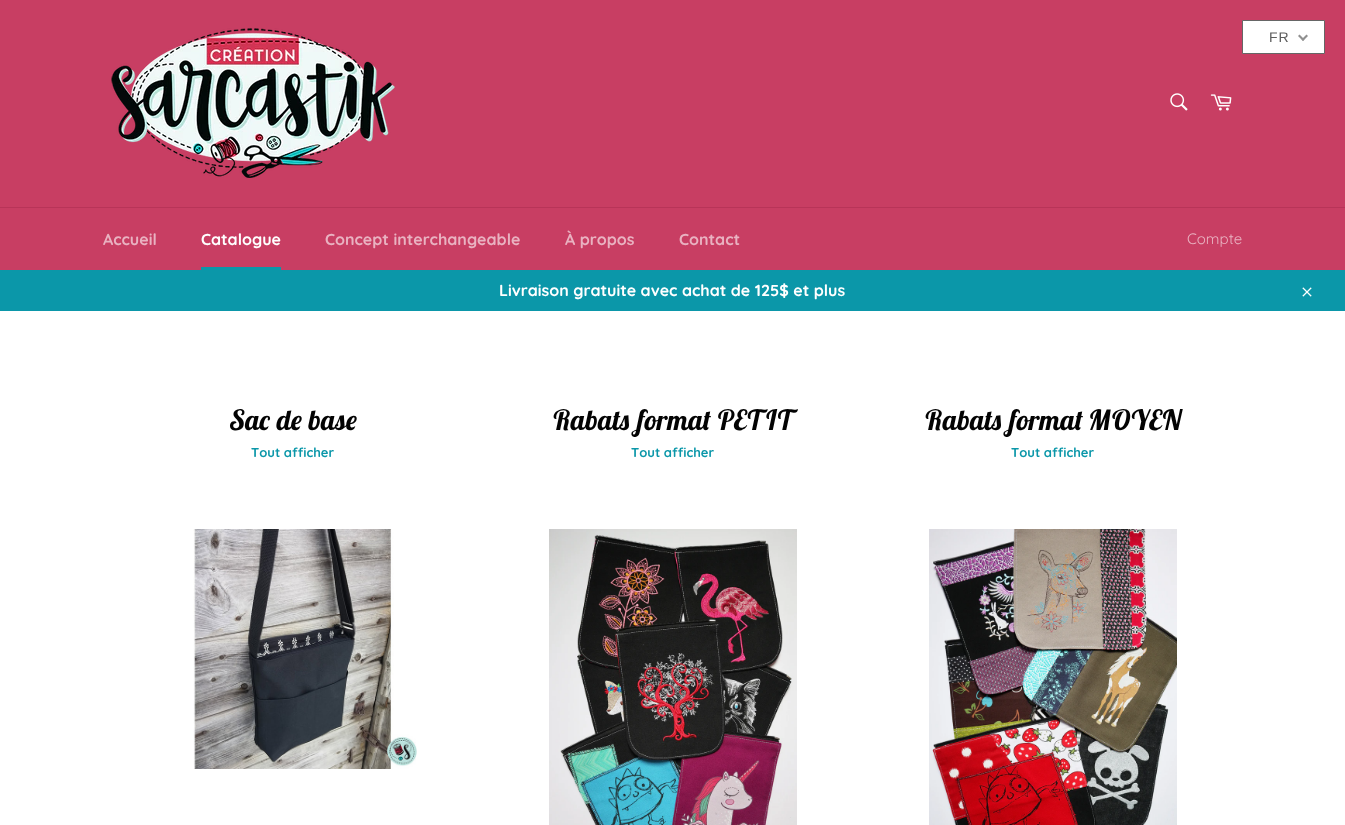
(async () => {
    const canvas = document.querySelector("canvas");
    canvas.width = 1345;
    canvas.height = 825;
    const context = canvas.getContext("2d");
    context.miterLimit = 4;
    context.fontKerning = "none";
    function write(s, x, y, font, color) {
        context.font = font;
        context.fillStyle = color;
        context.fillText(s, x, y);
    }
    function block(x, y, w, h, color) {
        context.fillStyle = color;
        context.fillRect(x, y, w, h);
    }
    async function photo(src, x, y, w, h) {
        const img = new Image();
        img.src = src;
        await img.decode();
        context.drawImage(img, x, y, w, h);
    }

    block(0, 0, 1345, 825, "rgb(255, 255, 255)");
    block(0, 0, 1345, 207, "rgb(200, 62, 99)");
    context.fillStyle = "rgb(255, 255, 255)";
    context.beginPath();
    context.rect(1242.5, 20.5, 82, 33);
    context.fill();
    context.strokeStyle = "rgb(102, 102, 102)";
    context.stroke();
    context.letterSpacing = "1px";
    write("FR", 1269, 42, "14px Liberation Sans", "rgb(92, 92, 92)");
    context.fillStyle = "rgb(144, 144, 144)";
    context.beginPath();
    context.moveTo(1306.5, 34.5);
    context.lineTo(1308, 36);
    context.lineTo(1303, 41);
    context.lineTo(1301.5, 39.5);
    context.closePath();
    context.fill();
    context.beginPath();
    context.moveTo(1299.5, 34.5);
    context.lineTo(1304.5, 39.5);
    context.lineTo(1303, 41);
    context.lineTo(1298, 36);
    context.closePath();
    context.fill();
    await photo("media/1.png", 111, 28, 284, 150);
    await photo("media/2.png", 1170, 93, 18, 18);
    await photo("media/3.png", 1210, 94, 22, 17);
    block(0, 208, 1345, 62, "rgb(200, 62, 99)");
    block(0, 207, 1345, 1, "rgb(184, 52, 88)");
    context.letterSpacing = "0px";
    write("Accueil", 103, 245, "bold 16px Quicksand", "rgb(233, 178, 193)");
    write("Catalogue", 201, 245, "bold 16px Quicksand", "rgb(255, 255, 255)");
    block(201, 267, 80, 3, "rgb(11, 151, 169)");
    write("Concept interchangeable", 325, 245, "bold 16px Quicksand", "rgb(233, 178, 193)");
    write("À propos", 565, 245, "bold 16px Quicksand", "rgb(233, 178, 193)");
    write("Contact", 679, 245, "bold 16px Quicksand", "rgb(233, 178, 193)");
    write("Compte", 1187, 244, "15px Quicksand", "rgb(233, 178, 193)");
    block(0, 270, 1345, 41, "rgb(11, 151, 169)");
    write("Livraison gratuite avec achat de 125$ et plus", 499, 296, "bold 16px Quicksand", "rgb(255, 255, 255)");
    await photo("media/4.png", 1302, 287, 10, 10);
    write("Sac de base", 230, 430, "italic bold 28px Lobster Two", "rgb(3, 3, 3)");
    write("Tout afficher", 251, 457, "bold 13px Quicksand", "rgb(11, 151, 169)");
    await photo("media/5.png", 193, 529, 224, 240);
    write("Rabats format PETIT", 552, 430, "italic bold 28px Lobster Two", "rgb(3, 3, 3)");
    write("Tout afficher", 631, 457, "bold 13px Quicksand", "rgb(11, 151, 169)");
    await photo("media/6.png", 549, 529, 248, 296);
    write("Rabats format MOYEN", 924, 430, "italic bold 28px Lobster Two", "rgb(3, 3, 3)");
    write("Tout afficher", 1011, 457, "bold 13px Quicksand", "rgb(11, 151, 169)");
    await photo("media/7.png", 929, 529, 248, 296);
})();
